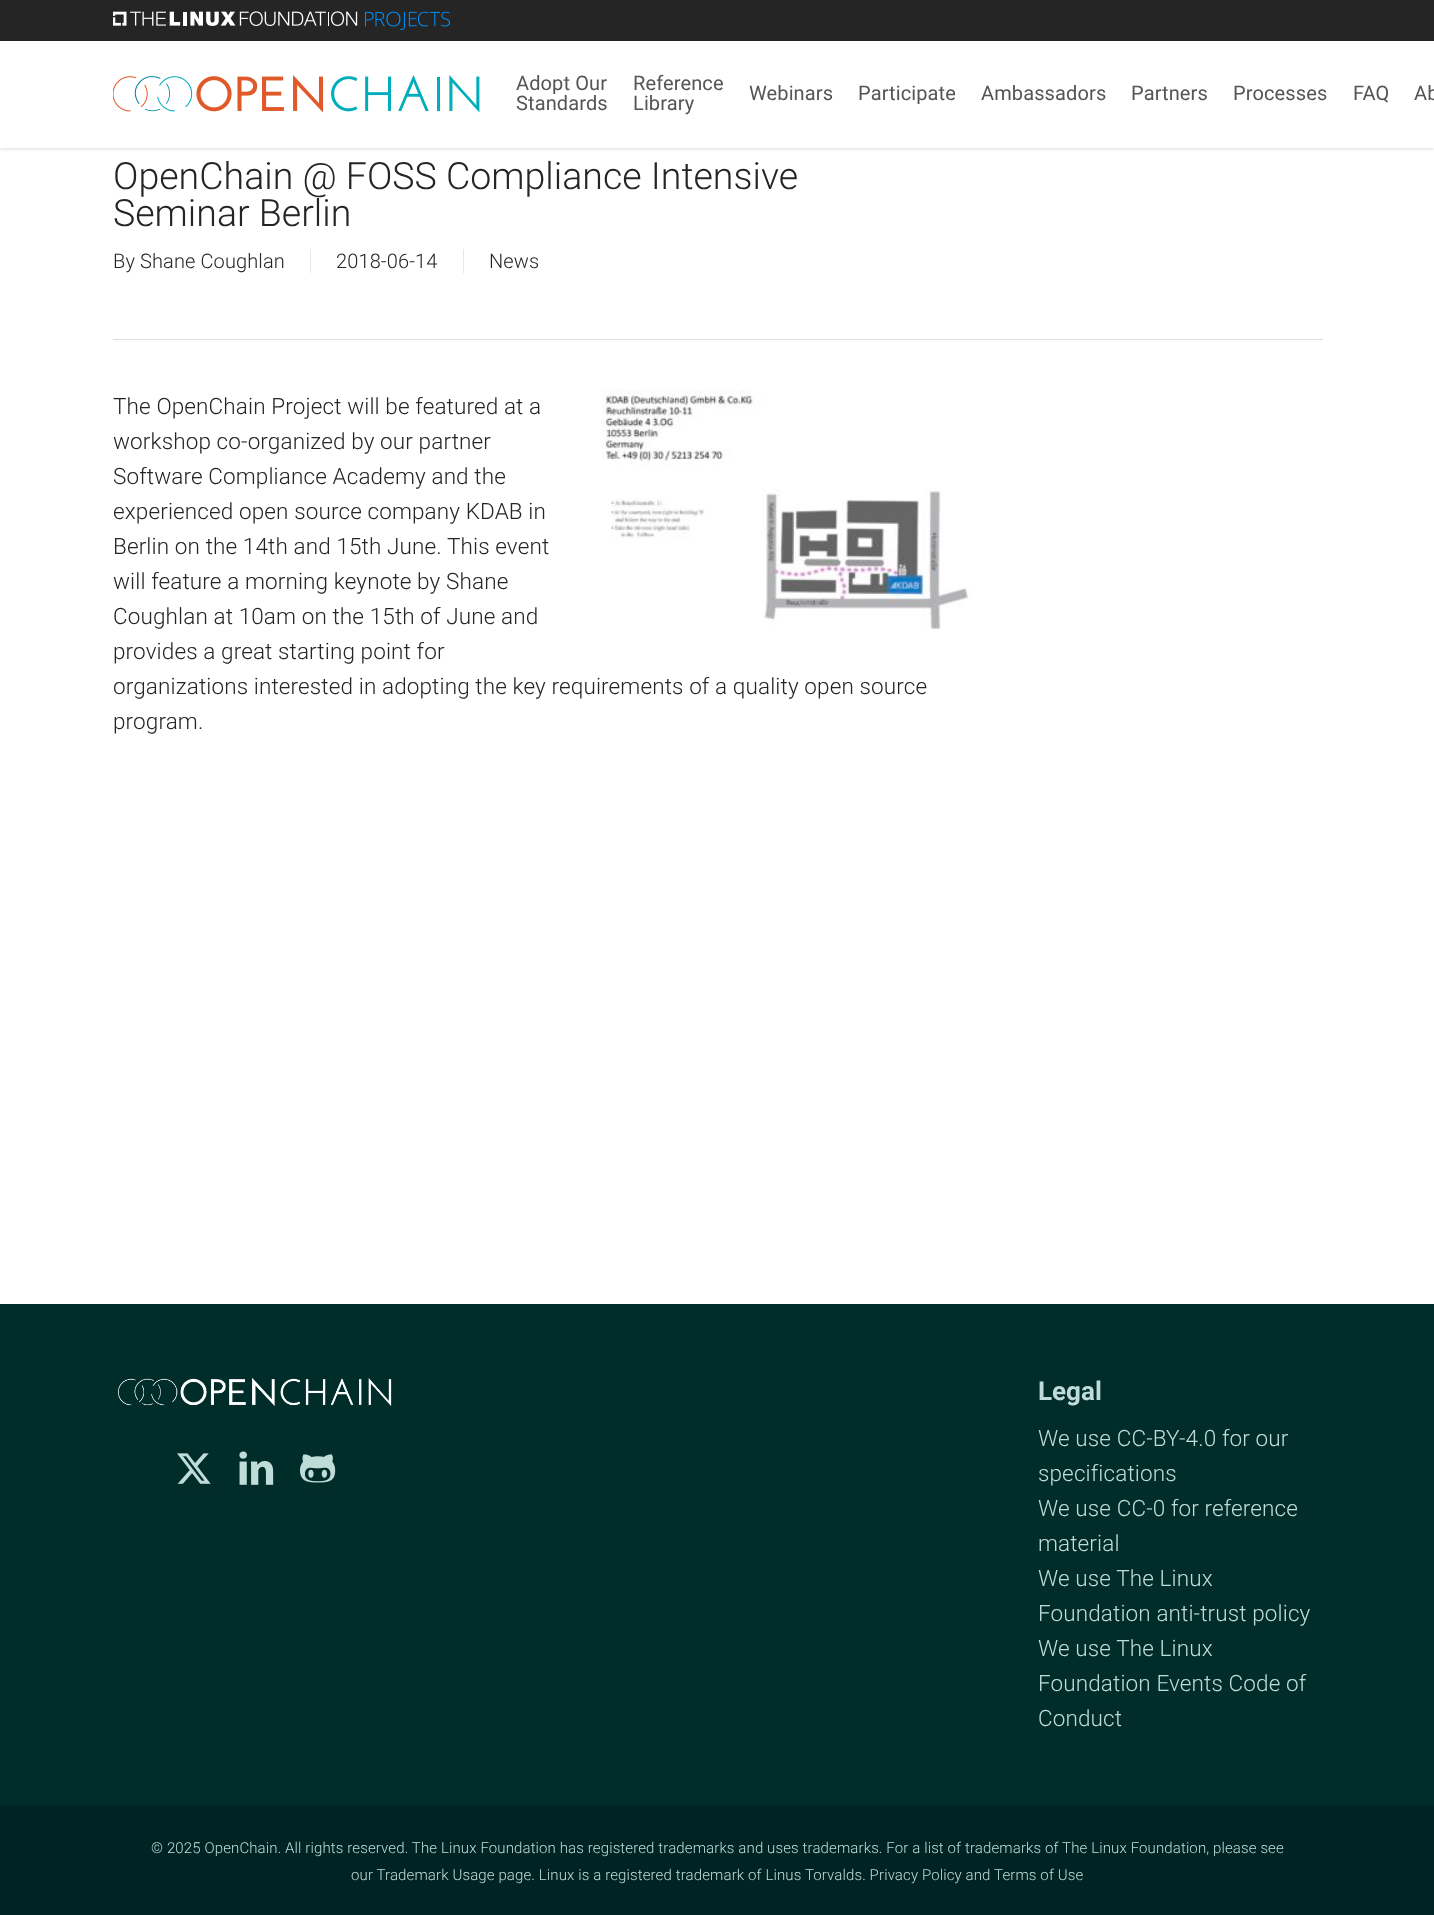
(async () => {
    const canvas = document.querySelector("canvas");
    canvas.width = 1434;
    canvas.height = 1915;
    const context = canvas.getContext("2d");
    context.miterLimit = 4;
    context.fontKerning = "normal";
    function write(s, x, y, font, color) {
        context.font = font;
        context.fillStyle = color;
        context.fillText(s, x, y);
    }
    function block(x, y, w, h, color) {
        context.fillStyle = color;
        context.fillRect(x, y, w, h);
    }
    async function photo(src, x, y, w, h) {
        const img = new Image();
        img.src = src;
        await img.decode();
        context.drawImage(img, x, y, w, h);
    }

    block(0, 0, 1434, 1915, "rgb(255, 255, 255)");
    context.fillStyle = "rgba(0, 0, 0, 0.22)";
    context.filter = "blur(2px)";
    context.beginPath();
    context.rect(0, 40, 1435, 108);
    context.fill();
    context.filter = "none";
    block(0, 0, 1434, 41, "rgb(37, 37, 37)");
    await photo("media/1.png", 113, 11, 337, 19);
    block(0, 41, 1434, 107, "rgb(255, 255, 255)");
    await photo("media/2.png", 113, 75, 367, 38);
    context.letterSpacing = "0.12px";
    write("Adopt Our", 516, 90, "20px Roboto", "rgb(85, 85, 85)");
    write("Standards", 516, 110, "20px Roboto", "rgb(85, 85, 85)");
    write("Reference", 633, 90, "20px Roboto", "rgb(85, 85, 85)");
    write("Library", 633, 110, "20px Roboto", "rgb(85, 85, 85)");
    write("Webinars", 749, 100, "20px Roboto", "rgb(85, 85, 85)");
    write("Participate", 858, 100, "20px Roboto", "rgb(85, 85, 85)");
    write("Ambassadors", 981, 100, "20px Roboto", "rgb(85, 85, 85)");
    write("Partners", 1131, 100, "20px Roboto", "rgb(85, 85, 85)");
    write("Processes", 1233, 100, "20px Roboto", "rgb(85, 85, 85)");
    write("FAQ", 1353, 100, "20px Roboto", "rgb(85, 85, 85)");
    write("Ab", 1414, 100, "20px Roboto", "rgb(85, 85, 85)");
    block(113, 339, 1210, 1, "rgb(221, 221, 221)");
    context.letterSpacing = "0px";
    write("OpenChain @ FOSS Compliance Intensive", 113, 189, "300 37.5px Roboto", "rgb(37, 37, 37)");
    write("Seminar Berlin", 113, 226, "300 37.5px Roboto", "rgb(37, 37, 37)");
    context.letterSpacing = "0.12px";
    write("By", 113, 268, "300 20px Roboto", "rgb(37, 37, 37)");
    write("Shane Coughlan", 140, 268, "300 20px Roboto", "rgb(37, 37, 37)");
    write("2018-06-14", 336, 268, "300 20px Roboto", "rgb(37, 37, 37)");
    block(310, 249, 1, 24, "rgb(230, 230, 230)");
    write("News", 489, 268, "300 20px Roboto", "rgb(37, 37, 37)");
    block(463, 249, 1, 24, "rgb(230, 230, 230)");
    write("The OpenChain Project will be featured at a", 113, 414, "300 22.5px Roboto", "rgb(37, 37, 37)");
    await photo("media/3.png", 601, 389, 370, 240);
    write("workshop co-organized by our partner", 113, 449, "300 22.5px Roboto", "rgb(37, 37, 37)");
    write("Software Compliance Academy and the", 113, 484, "300 22.5px Roboto", "rgb(37, 37, 37)");
    write("experienced open source company KDAB in", 113, 519, "300 22.5px Roboto", "rgb(37, 37, 37)");
    write("Berlin on the 14th and 15th June. This event", 113, 554, "300 22.5px Roboto", "rgb(37, 37, 37)");
    write("will feature a morning keynote by Shane", 113, 589, "300 22.5px Roboto", "rgb(37, 37, 37)");
    write("Coughlan at 10am on the 15th of June and", 113, 624, "300 22.5px Roboto", "rgb(37, 37, 37)");
    write("provides a great starting point for", 113, 659, "300 22.5px Roboto", "rgb(37, 37, 37)");
    write("organizations interested in adopting the key requirements of a quality open source", 113, 694, "300 22.5px Roboto", "rgb(37, 37, 37)");
    write("program.", 113, 729, "300 22.5px Roboto", "rgb(37, 37, 37)");
    block(0, 1304, 1434, 501, "rgb(0, 44, 41)");
    await photo("media/4.png", 118, 1378, 274, 28);
    block(175, 1488, 38, 1, "rgb(0, 40, 37)");
    await photo("media/5.png", 177, 1453, 34, 31);
    block(238, 1488, 37, 1, "rgb(0, 40, 37)");
    await photo("media/6.png", 239, 1451, 35, 34);
    block(300, 1488, 35, 1, "rgb(0, 40, 37)");
    await photo("media/7.png", 300, 1454, 36, 29);
    context.letterSpacing = "0px";
    write("Legal", 1038, 1400, "bold 26px Roboto", "rgb(191, 220, 217)");
    context.letterSpacing = "0.12px";
    write("We use CC-BY-4.0 for our", 1038, 1446, "300 22.5px Roboto", "rgb(191, 220, 217)");
    write("specifications", 1038, 1481, "300 22.5px Roboto", "rgb(191, 220, 217)");
    write("We use CC-0 for reference", 1038, 1516, "300 22.5px Roboto", "rgb(191, 220, 217)");
    write("material", 1038, 1551, "300 22.5px Roboto", "rgb(191, 220, 217)");
    write("We use The Linux", 1038, 1586, "300 22.5px Roboto", "rgb(191, 220, 217)");
    write("Foundation anti-trust policy", 1038, 1621, "300 22.5px Roboto", "rgb(191, 220, 217)");
    write("We use The Linux", 1038, 1656, "300 22.5px Roboto", "rgb(191, 220, 217)");
    write("Foundation Events Code of", 1038, 1691, "300 22.5px Roboto", "rgb(191, 220, 217)");
    write("Conduct", 1038, 1726, "300 22.5px Roboto", "rgb(191, 220, 217)");
    block(0, 1805, 1434, 110, "rgb(0, 36, 36)");
    write("© 2025 OpenChain. All rights reserved. The Linux Foundation has registered trademarks and uses trademarks. For a list of trademarks of The Linux Foundation, please see", 151, 1853, "300 15px Roboto", "rgb(191, 220, 217)");
    write("our Trademark Usage page. Linux is a registered trademark of Linus Torvalds. Privacy Policy and Terms of Use", 351, 1880, "300 15px Roboto", "rgb(191, 220, 217)");
})();
